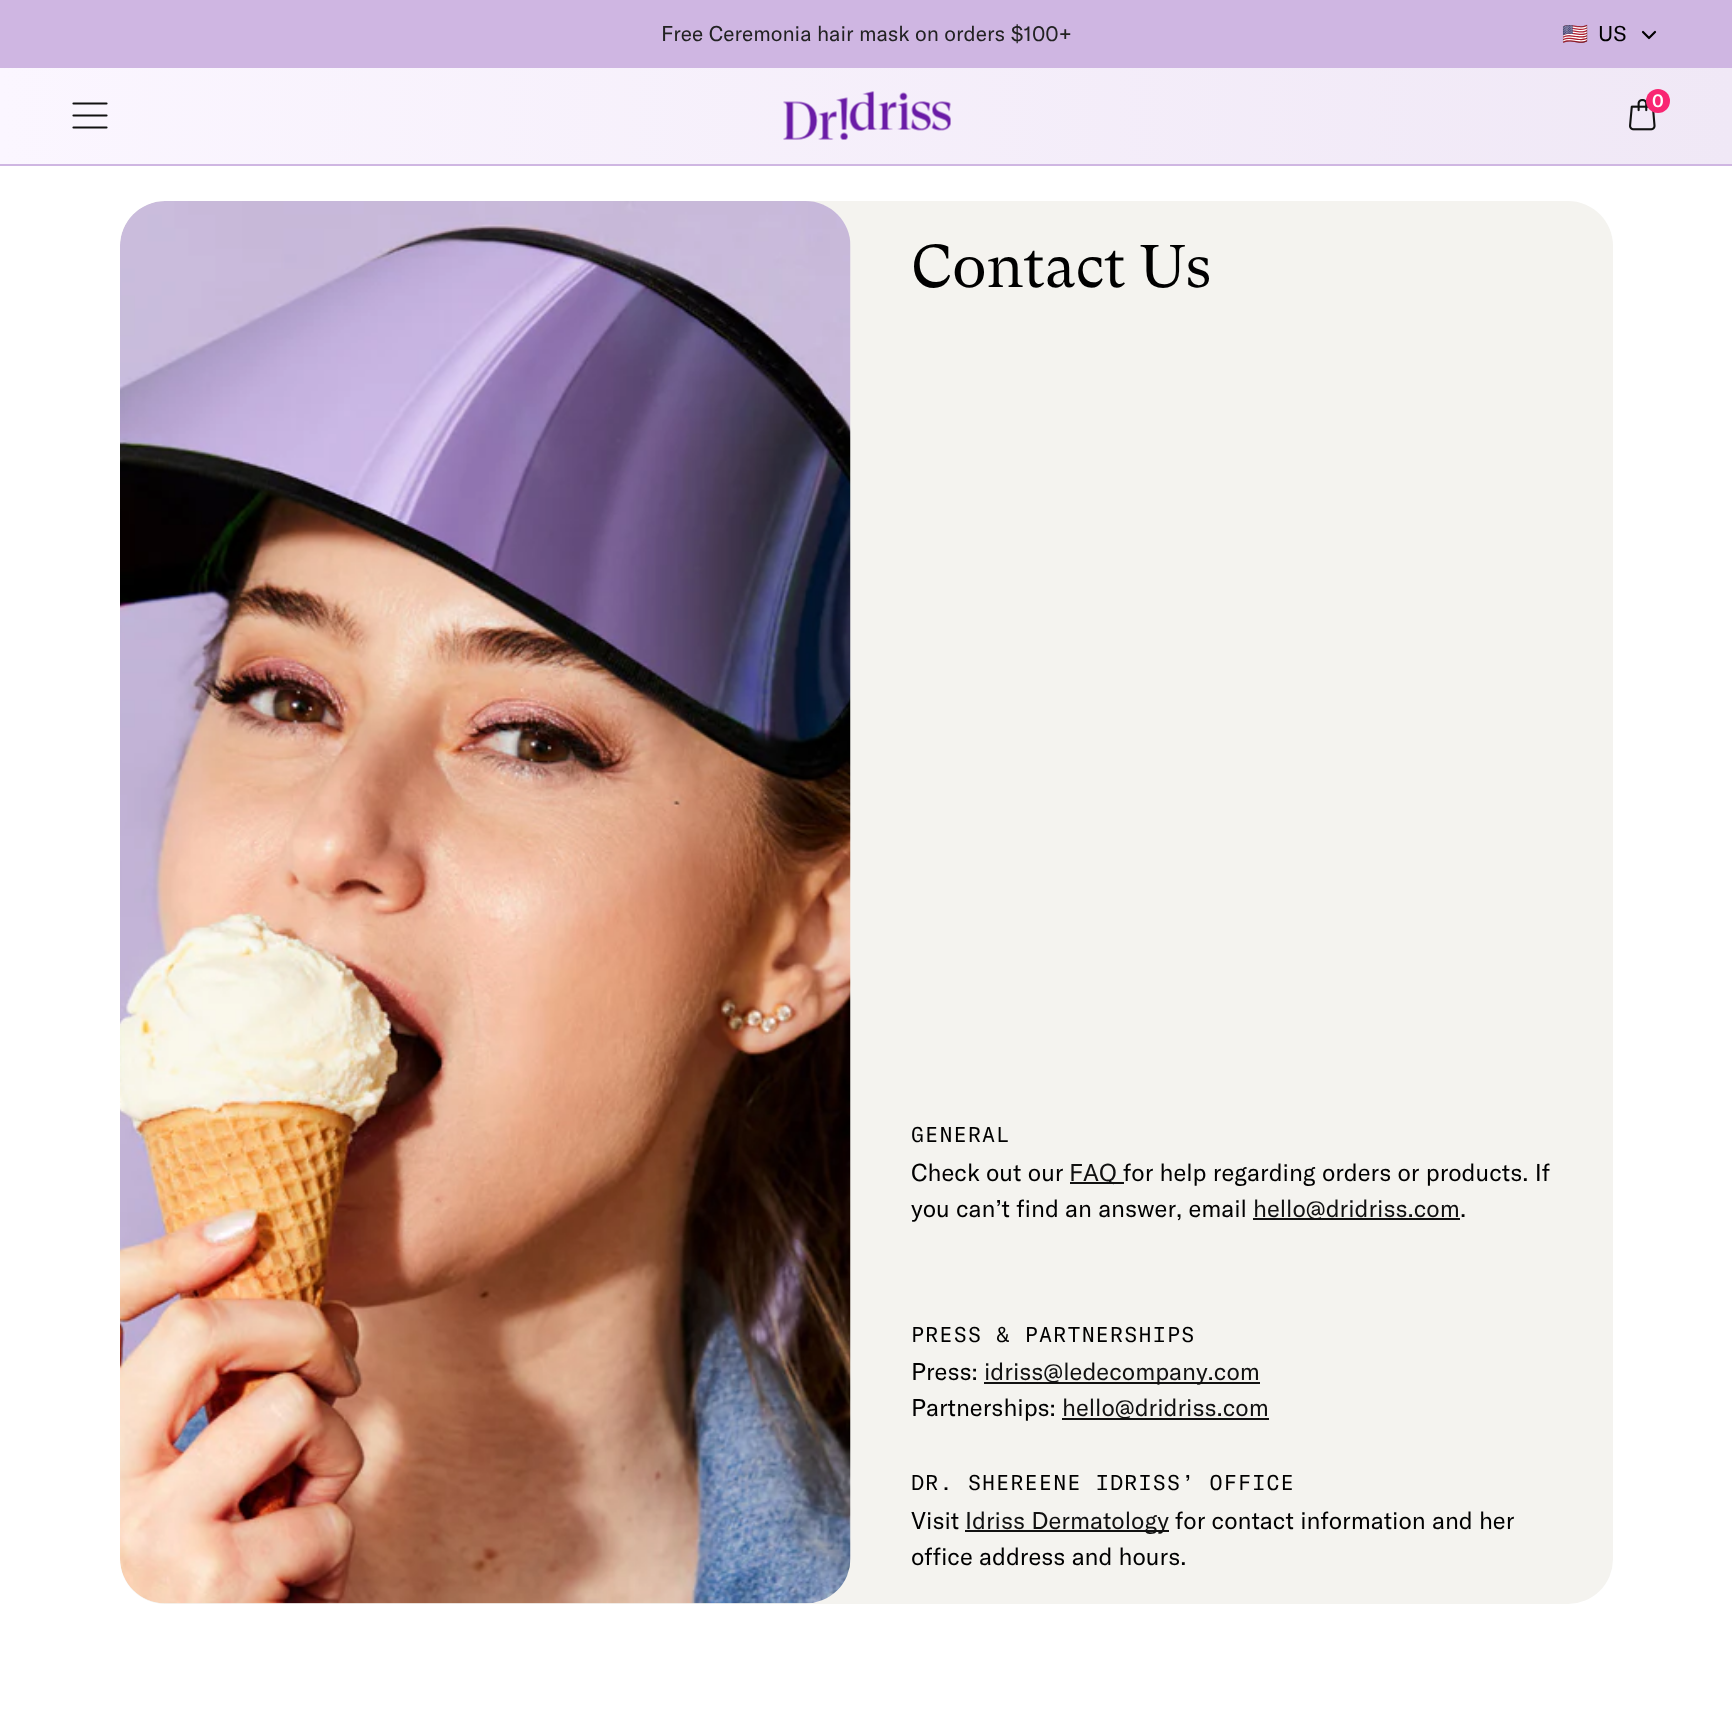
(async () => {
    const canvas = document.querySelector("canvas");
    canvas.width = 1732;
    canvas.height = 1711;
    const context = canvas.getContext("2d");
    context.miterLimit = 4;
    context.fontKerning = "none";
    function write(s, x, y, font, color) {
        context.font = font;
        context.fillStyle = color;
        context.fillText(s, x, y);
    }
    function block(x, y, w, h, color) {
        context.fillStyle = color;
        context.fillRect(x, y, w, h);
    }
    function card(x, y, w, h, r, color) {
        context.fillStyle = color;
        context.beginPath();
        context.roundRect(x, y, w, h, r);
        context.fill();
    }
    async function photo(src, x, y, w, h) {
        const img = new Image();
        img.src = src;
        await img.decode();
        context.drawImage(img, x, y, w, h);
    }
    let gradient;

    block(0, 0, 1732, 1711, "rgb(255, 255, 255)");
    block(0, 0, 1732, 68, "rgb(207, 182, 226)");
    write("Free Ceremonia hair mask on orders $100+", 661, 41, "21px GT America", "rgb(34, 34, 34)");
    context.beginPath();
    context.moveTo(1643, 32);
    context.lineTo(1649, 38);
    context.lineTo(1655, 32);
    context.strokeStyle = "rgb(0, 0, 0)";
    context.lineWidth = 2.2;
    context.lineCap = "round";
    context.lineJoin = "round";
    context.stroke();
    context.save();
    context.beginPath();
    context.rect(1562, 18, 69, 32);
    context.clip();
    write("🇺🇸", 1562, 41, "21px Noto Color Emoji", "rgb(0, 0, 0)");
    context.restore();
    write("US", 1598, 41, "21px GT America", "rgb(0, 0, 0)");
    gradient = context.createLinearGradient(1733, 115, 0, 116);
    gradient.addColorStop(0, "rgb(240, 232, 246)");
    gradient.addColorStop(1, "rgb(251, 246, 255)");
    context.fillStyle = gradient;
    context.fillRect(0, 68, 1732, 96);
    block(0, 164, 1732, 2, "rgb(207, 182, 226)");
    context.beginPath();
    context.moveTo(73.5, 115.5);
    context.lineTo(106.5, 115.5);
    context.moveTo(73.5, 103.5);
    context.lineTo(106.5, 103.5);
    context.moveTo(73.5, 127.5);
    context.lineTo(106.5, 127.5);
    context.strokeStyle = "rgb(17, 17, 17)";
    context.stroke();
    await photo("media/1.png", 783, 91, 168, 49);
    await photo("media/2.png", 1629, 99, 27, 32);
    context.fillStyle = "rgb(249, 38, 114)";
    context.beginPath();
    context.arc(1658, 101, 12, 0, Math.PI * 2);
    context.fill();
    write("0", 1652, 107, "500 18px GT America", "rgb(255, 255, 255)");
    card(120, 201, 1493, 1403, 45, "rgb(244, 243, 239)");
    await photo("media/3.png", 120, 201, 731, 1403);
    write("Contact Us", 911, 287, "60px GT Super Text", "rgb(0, 0, 0)");
    context.letterSpacing = "1.2px";
    write("GENERAL", 911, 1142, "21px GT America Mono", "rgb(0, 0, 0)");
    context.letterSpacing = "0px";
    write("Check out our", 911, 1181, "24px GT America", "rgb(0, 0, 0)");
    block(1070, 1182, 54, 2, "rgb(17, 17, 17)");
    write("FAQ", 1069, 1181, "24px GT America", "rgb(17, 17, 17)");
    write("for help regarding orders or products. If", 1123, 1181, "24px GT America", "rgb(0, 0, 0)");
    write("you can’t find an answer, email", 911, 1217, "24px GT America", "rgb(0, 0, 0)");
    block(1253, 1218, 207, 2, "rgb(17, 17, 17)");
    write("hello@dridriss.com", 1253, 1217, "24px GT America", "rgb(17, 17, 17)");
    write(".", 1460, 1217, "24px GT America", "rgb(0, 0, 0)");
    context.letterSpacing = "1.2px";
    write("PRESS & PARTNERSHIPS", 911, 1342, "21px GT America Mono", "rgb(0, 0, 0)");
    context.letterSpacing = "0px";
    write("Press:", 911, 1380, "24px GT America", "rgb(0, 0, 0)");
    block(984, 1382, 276, 2, "rgb(17, 17, 17)");
    write("idriss@ledecompany.com", 984, 1380, "24px GT America", "rgb(17, 17, 17)");
    write("Partnerships:", 911, 1416, "24px GT America", "rgb(0, 0, 0)");
    block(1062, 1418, 207, 2, "rgb(17, 17, 17)");
    write("hello@dridriss.com", 1062, 1416, "24px GT America", "rgb(17, 17, 17)");
    context.letterSpacing = "1.2px";
    write("DR. SHEREENE IDRISS’ OFFICE", 911, 1490, "21px GT America Mono", "rgb(0, 0, 0)");
    context.letterSpacing = "0px";
    write("Visit", 911, 1529, "24px GT America", "rgb(0, 0, 0)");
    block(965, 1530, 204, 2, "rgb(17, 17, 17)");
    write("Idriss Dermatology", 965, 1529, "24px GT America", "rgb(17, 17, 17)");
    write("for contact information and her", 1175, 1529, "24px GT America", "rgb(0, 0, 0)");
    write("office address and hours.", 911, 1565, "24px GT America", "rgb(0, 0, 0)");
})();
